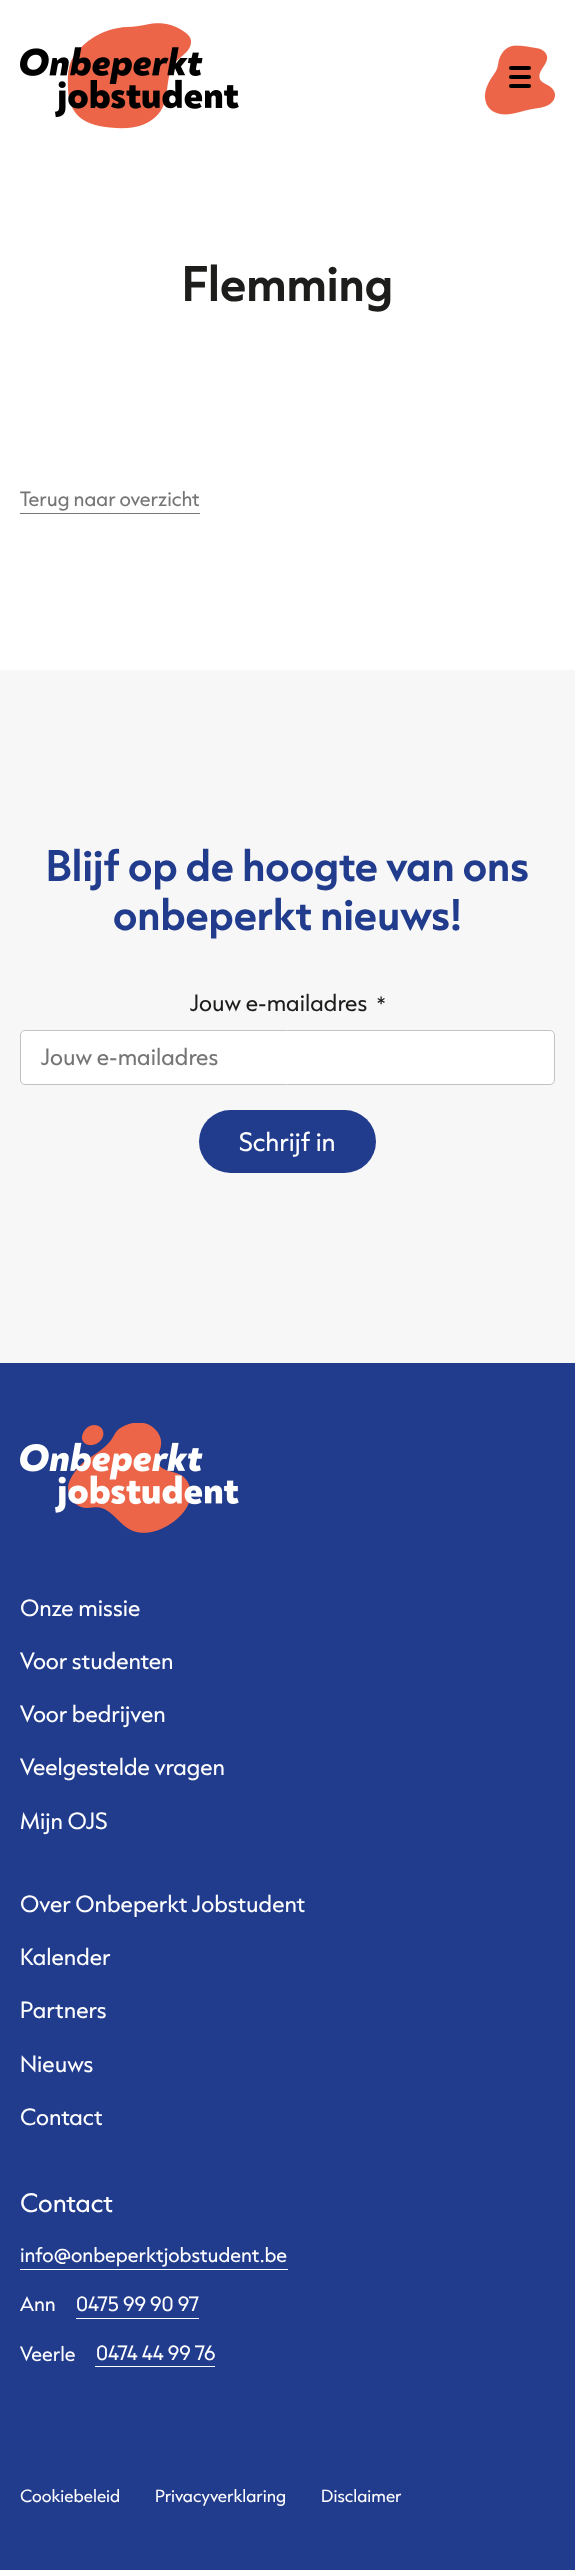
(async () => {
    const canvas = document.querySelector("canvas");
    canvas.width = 575;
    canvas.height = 2570;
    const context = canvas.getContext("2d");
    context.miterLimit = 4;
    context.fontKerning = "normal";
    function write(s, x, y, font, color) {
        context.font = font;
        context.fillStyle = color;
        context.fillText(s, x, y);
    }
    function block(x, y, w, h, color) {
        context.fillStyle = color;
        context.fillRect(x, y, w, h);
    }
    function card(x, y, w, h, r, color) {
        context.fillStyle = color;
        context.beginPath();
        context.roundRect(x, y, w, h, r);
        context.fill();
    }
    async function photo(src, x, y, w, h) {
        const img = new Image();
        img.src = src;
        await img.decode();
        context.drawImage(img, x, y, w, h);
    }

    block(0, 0, 575, 2570, "rgb(255, 255, 255)");
    await photo("media/1.png", 20, 23, 219, 106);
    await photo("media/2.png", 485, 45, 70, 70);
    card(509, 84, 22, 4, 2, "rgb(0, 0, 0)");
    card(509, 66, 22, 4, 2, "rgb(0, 0, 0)");
    card(509, 75, 22, 4, 2, "rgb(0, 0, 0)");
    write("Flemming", 182, 301, "600 42.5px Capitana", "rgb(29, 29, 27)");
    block(20, 513, 180, 1, "rgb(117, 117, 117)");
    write("Terug naar overzicht", 20, 506, "17.5px Capitana", "rgb(117, 117, 117)");
    block(0, 670, 575, 693, "rgb(247, 247, 248)");
    write("Blijf op de hoogte van ons", 46, 881, "600 37.5px Capitana", "rgb(33, 59, 141)");
    write("onbeperkt nieuws!", 113, 930, "600 37.5px Capitana", "rgb(33, 59, 141)");
    write("Jouw e-mailadres", 190, 1011, "20px Capitana", "rgb(29, 29, 27)");
    write("*", 377, 1011, "17.5px Capitana", "rgb(29, 29, 27)");
    context.fillStyle = "rgb(255, 255, 255)";
    context.beginPath();
    context.roundRect(20.5, 1030.5, 534, 54, 4.5);
    context.fill();
    context.strokeStyle = "rgb(194, 194, 198)";
    context.stroke();
    write("Jouw e-mailadres", 41, 1065, "20px Capitana", "rgb(117, 117, 117)");
    card(199, 1110, 177, 63, 31.5, "rgb(33, 59, 141)");
    write("Schrijf in", 239, 1151, "22.5px Capitana", "rgb(255, 255, 255)");
    block(0, 1363, 575, 1207, "rgb(33, 59, 141)");
    await photo("media/3.png", 20, 1423, 219, 110);
    write("Onze missie", 20, 1616, "20px Capitana", "rgb(255, 255, 255)");
    write("Voor studenten", 20, 1669, "20px Capitana", "rgb(255, 255, 255)");
    write("Voor bedrijven", 20, 1722, "20px Capitana", "rgb(255, 255, 255)");
    write("Veelgestelde vragen", 20, 1775, "20px Capitana", "rgb(255, 255, 255)");
    write("Mijn OJS", 20, 1829, "20px Capitana", "rgb(255, 255, 255)");
    write("Over Onbeperkt Jobstudent", 20, 1912, "20px Capitana", "rgb(255, 255, 255)");
    write("Kalender", 20, 1965, "20px Capitana", "rgb(255, 255, 255)");
    write("Partners", 20, 2018, "20px Capitana", "rgb(255, 255, 255)");
    write("Nieuws", 20, 2072, "20px Capitana", "rgb(255, 255, 255)");
    write("Contact", 20, 2125, "20px Capitana", "rgb(255, 255, 255)");
    write("Contact", 20, 2212, "22.5px Capitana", "rgb(255, 255, 255)");
    block(20, 2269, 268, 1, "rgb(255, 255, 255)");
    write("info@onbeperktjobstudent.be", 20, 2262, "17.5px Capitana", "rgb(255, 255, 255)");
    write("Ann", 20, 2311, "17.5px Capitana", "rgb(255, 255, 255)");
    block(76, 2318, 123, 1, "rgb(255, 255, 255)");
    write("0475 99 90 97", 76, 2311, "17.5px Capitana", "rgb(255, 255, 255)");
    write("Veerle", 20, 2361, "17.5px Capitana", "rgb(255, 255, 255)");
    block(95, 2366, 120, 1, "rgb(255, 255, 255)");
    write("0474 44 99 76", 96, 2360, "17.5px Capitana", "rgb(255, 255, 255)");
    write("Cookiebeleid", 20, 2502, "15px Capitana", "rgb(255, 255, 255)");
    write("Privacyverklaring", 155, 2502, "15px Capitana", "rgb(255, 255, 255)");
    write("Disclaimer", 321, 2502, "15px Capitana", "rgb(255, 255, 255)");
})();
